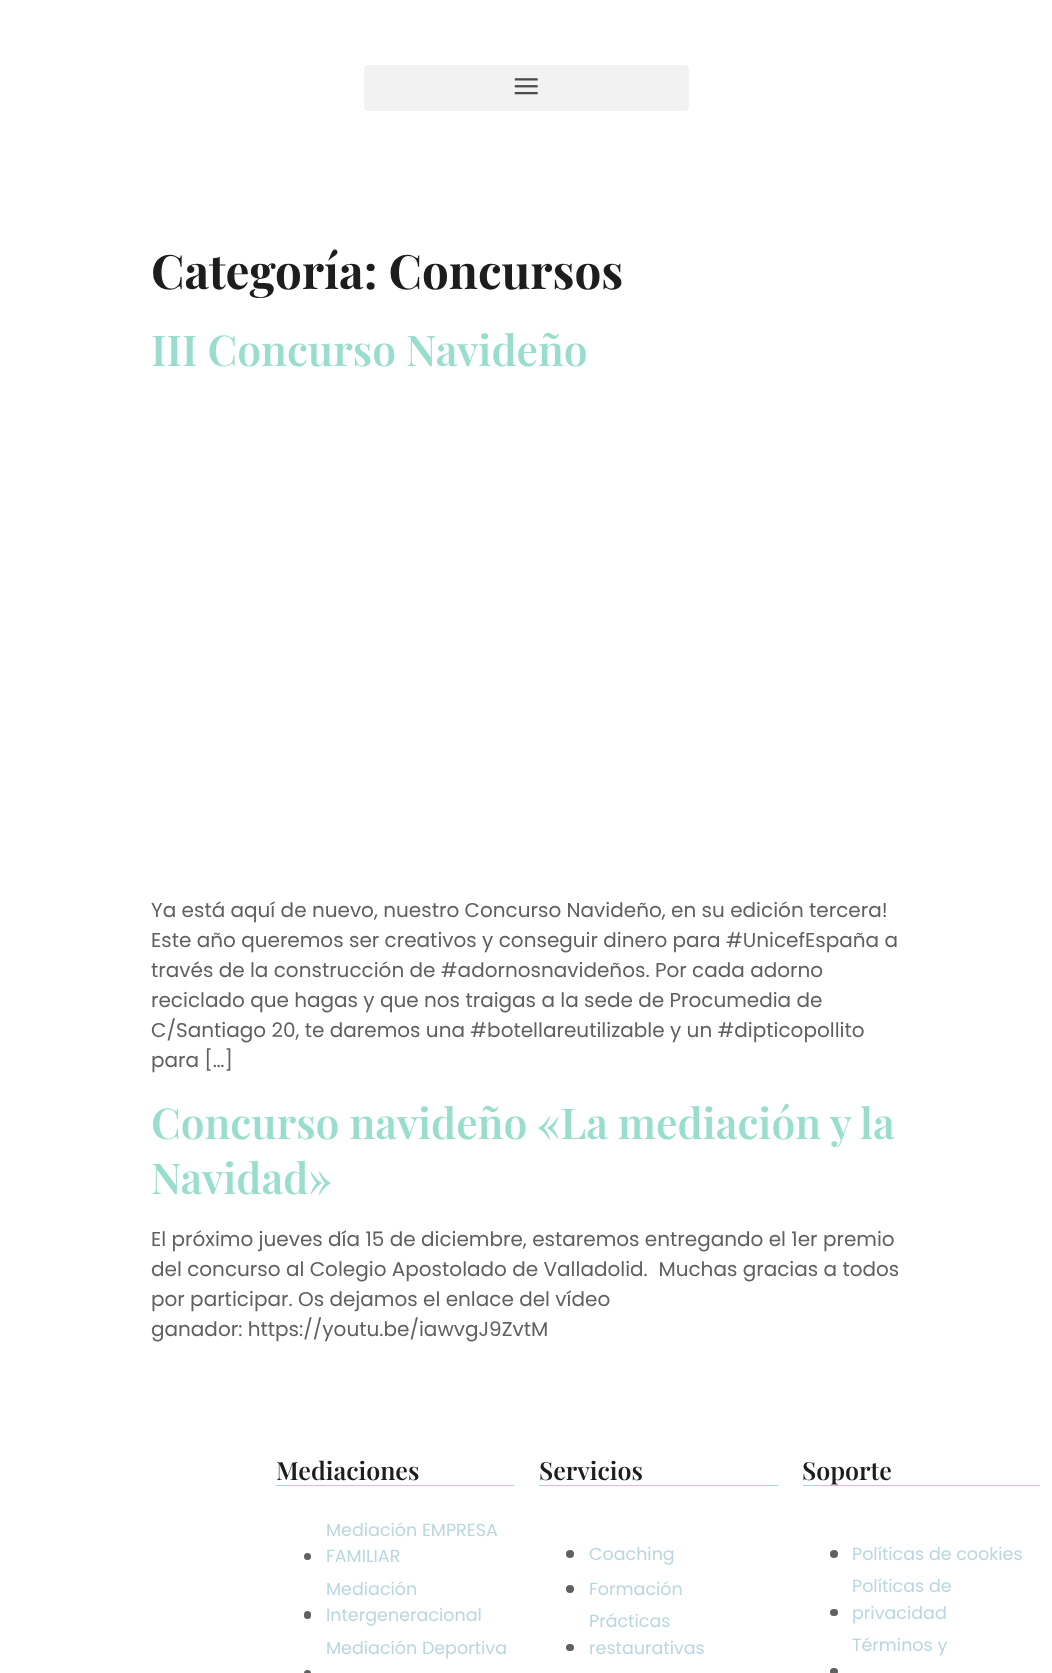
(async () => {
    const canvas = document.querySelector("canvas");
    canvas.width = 1052;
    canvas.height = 1673;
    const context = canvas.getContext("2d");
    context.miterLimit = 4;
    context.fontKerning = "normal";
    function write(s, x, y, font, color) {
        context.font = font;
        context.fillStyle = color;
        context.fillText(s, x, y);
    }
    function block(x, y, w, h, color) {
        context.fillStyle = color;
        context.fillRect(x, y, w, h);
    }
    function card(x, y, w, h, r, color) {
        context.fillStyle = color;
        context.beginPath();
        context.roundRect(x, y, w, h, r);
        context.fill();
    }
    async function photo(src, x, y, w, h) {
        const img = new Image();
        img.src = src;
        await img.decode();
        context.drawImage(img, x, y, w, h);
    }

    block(0, 0, 1052, 1673, "rgb(255, 255, 255)");
    card(364, 65, 325, 46, 4, "rgb(242, 242, 242)");
    await photo("media/1.png", 514, 78, 24, 17);
    write("Categoría: Concursos", 151, 289, "bold 47.5px Playfair Display", "rgb(29, 29, 29)");
    write("III Concurso Navideño", 151, 366, "600 42.5px Playfair Display", "rgb(153, 221, 204)");
    write("Ya está aquí de nuevo, nuestro Concurso Navideño, en su edición tercera!", 151, 917, "20px Poppins", "rgb(96, 96, 96)");
    write("Este año queremos ser creativos y conseguir dinero para #UnicefEspaña a", 151, 947, "20px Poppins", "rgb(96, 96, 96)");
    write("través de la construcción de #adornosnavideños. Por cada adorno", 151, 977, "20px Poppins", "rgb(96, 96, 96)");
    write("reciclado que hagas y que nos traigas a la sede de Procumedia de", 151, 1007, "20px Poppins", "rgb(96, 96, 96)");
    write("C/Santiago 20, te daremos una #botellareutilizable y un #dipticopollito", 151, 1037, "20px Poppins", "rgb(96, 96, 96)");
    write("para […]", 151, 1067, "20px Poppins", "rgb(96, 96, 96)");
    write("Concurso navideño «La mediación y la", 151, 1139, "600 42.5px Playfair Display", "rgb(153, 221, 204)");
    write("Navidad»", 151, 1194, "600 42.5px Playfair Display", "rgb(153, 221, 204)");
    write("El próximo jueves día 15 de diciembre, estaremos entregando el 1er premio", 151, 1246, "20px Poppins", "rgb(96, 96, 96)");
    write("del concurso al Colegio Apostolado de Valladolid.  Muchas gracias a todos", 151, 1276, "20px Poppins", "rgb(96, 96, 96)");
    write("por participar. Os dejamos el enlace del vídeo", 151, 1306, "20px Poppins", "rgb(96, 96, 96)");
    write("ganador: https://youtu.be/iawvgJ9ZvtM", 151, 1336, "20px Poppins", "rgb(96, 96, 96)");
    block(276, 1485, 238, 1, "rgb(153, 221, 204)");
    write("Mediaciones", 276, 1480, "600 25px Playfair Display", "rgb(29, 29, 29)");
    context.fillStyle = "rgb(96, 96, 96)";
    context.beginPath();
    context.arc(307.5, 1556.5, 3.5, 0, Math.PI * 2);
    context.fill();
    write("Mediación EMPRESA", 326, 1536, "17.5px Poppins", "rgb(186, 215, 223)");
    write("FAMILIAR", 326, 1562, "17.5px Poppins", "rgb(186, 215, 223)");
    card(304, 1611, 7, 8, 3.5, "rgb(96, 96, 96)");
    write("Mediación", 326, 1595, "17.5px Poppins", "rgb(186, 215, 223)");
    write("Intergeneracional", 326, 1621, "17.5px Poppins", "rgb(186, 215, 223)");
    write("Mediación Deportiva", 326, 1654, "17.5px Poppins", "rgb(186, 215, 223)");
    context.fillStyle = "rgb(96, 96, 96)";
    context.beginPath();
    context.arc(307.5, 1673.5, 3.5, 0, Math.PI * 2);
    context.fill();
    block(539, 1485, 239, 1, "rgb(153, 221, 204)");
    write("Servicios", 539, 1480, "600 25px Playfair Display", "rgb(29, 29, 29)");
    context.fillStyle = "rgb(96, 96, 96)";
    context.beginPath();
    context.arc(570, 1554, 4, 0, Math.PI * 2);
    context.fill();
    write("Coaching", 589, 1560, "17.5px Poppins", "rgb(186, 215, 223)");
    context.fillStyle = "rgb(96, 96, 96)";
    context.beginPath();
    context.arc(570, 1589, 4, 0, Math.PI * 2);
    context.fill();
    write("Formación", 589, 1595, "17.5px Poppins", "rgb(186, 215, 223)");
    card(566, 1644, 8, 7, 3.5, "rgb(96, 96, 96)");
    write("Prácticas", 589, 1627, "17.5px Poppins", "rgb(186, 215, 223)");
    write("restaurativas", 589, 1654, "17.5px Poppins", "rgb(186, 215, 223)");
    block(803, 1485, 237, 1, "rgb(153, 221, 204)");
    write("Soporte", 802, 1480, "600 25px Playfair Display", "rgb(29, 29, 29)");
    context.fillStyle = "rgb(96, 96, 96)";
    context.beginPath();
    context.arc(834, 1554, 4, 0, Math.PI * 2);
    context.fill();
    write("Políticas de cookies", 852, 1560, "17.5px Poppins", "rgb(186, 215, 223)");
    card(830, 1609, 8, 7, 3.5, "rgb(96, 96, 96)");
    write("Políticas de", 852, 1592, "17.5px Poppins", "rgb(186, 215, 223)");
    write("privacidad", 852, 1619, "17.5px Poppins", "rgb(186, 215, 223)");
    write("Términos y", 852, 1651, "17.5px Poppins", "rgb(186, 215, 223)");
    card(830, 1668, 8, 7, 3.5, "rgb(96, 96, 96)");
})();
